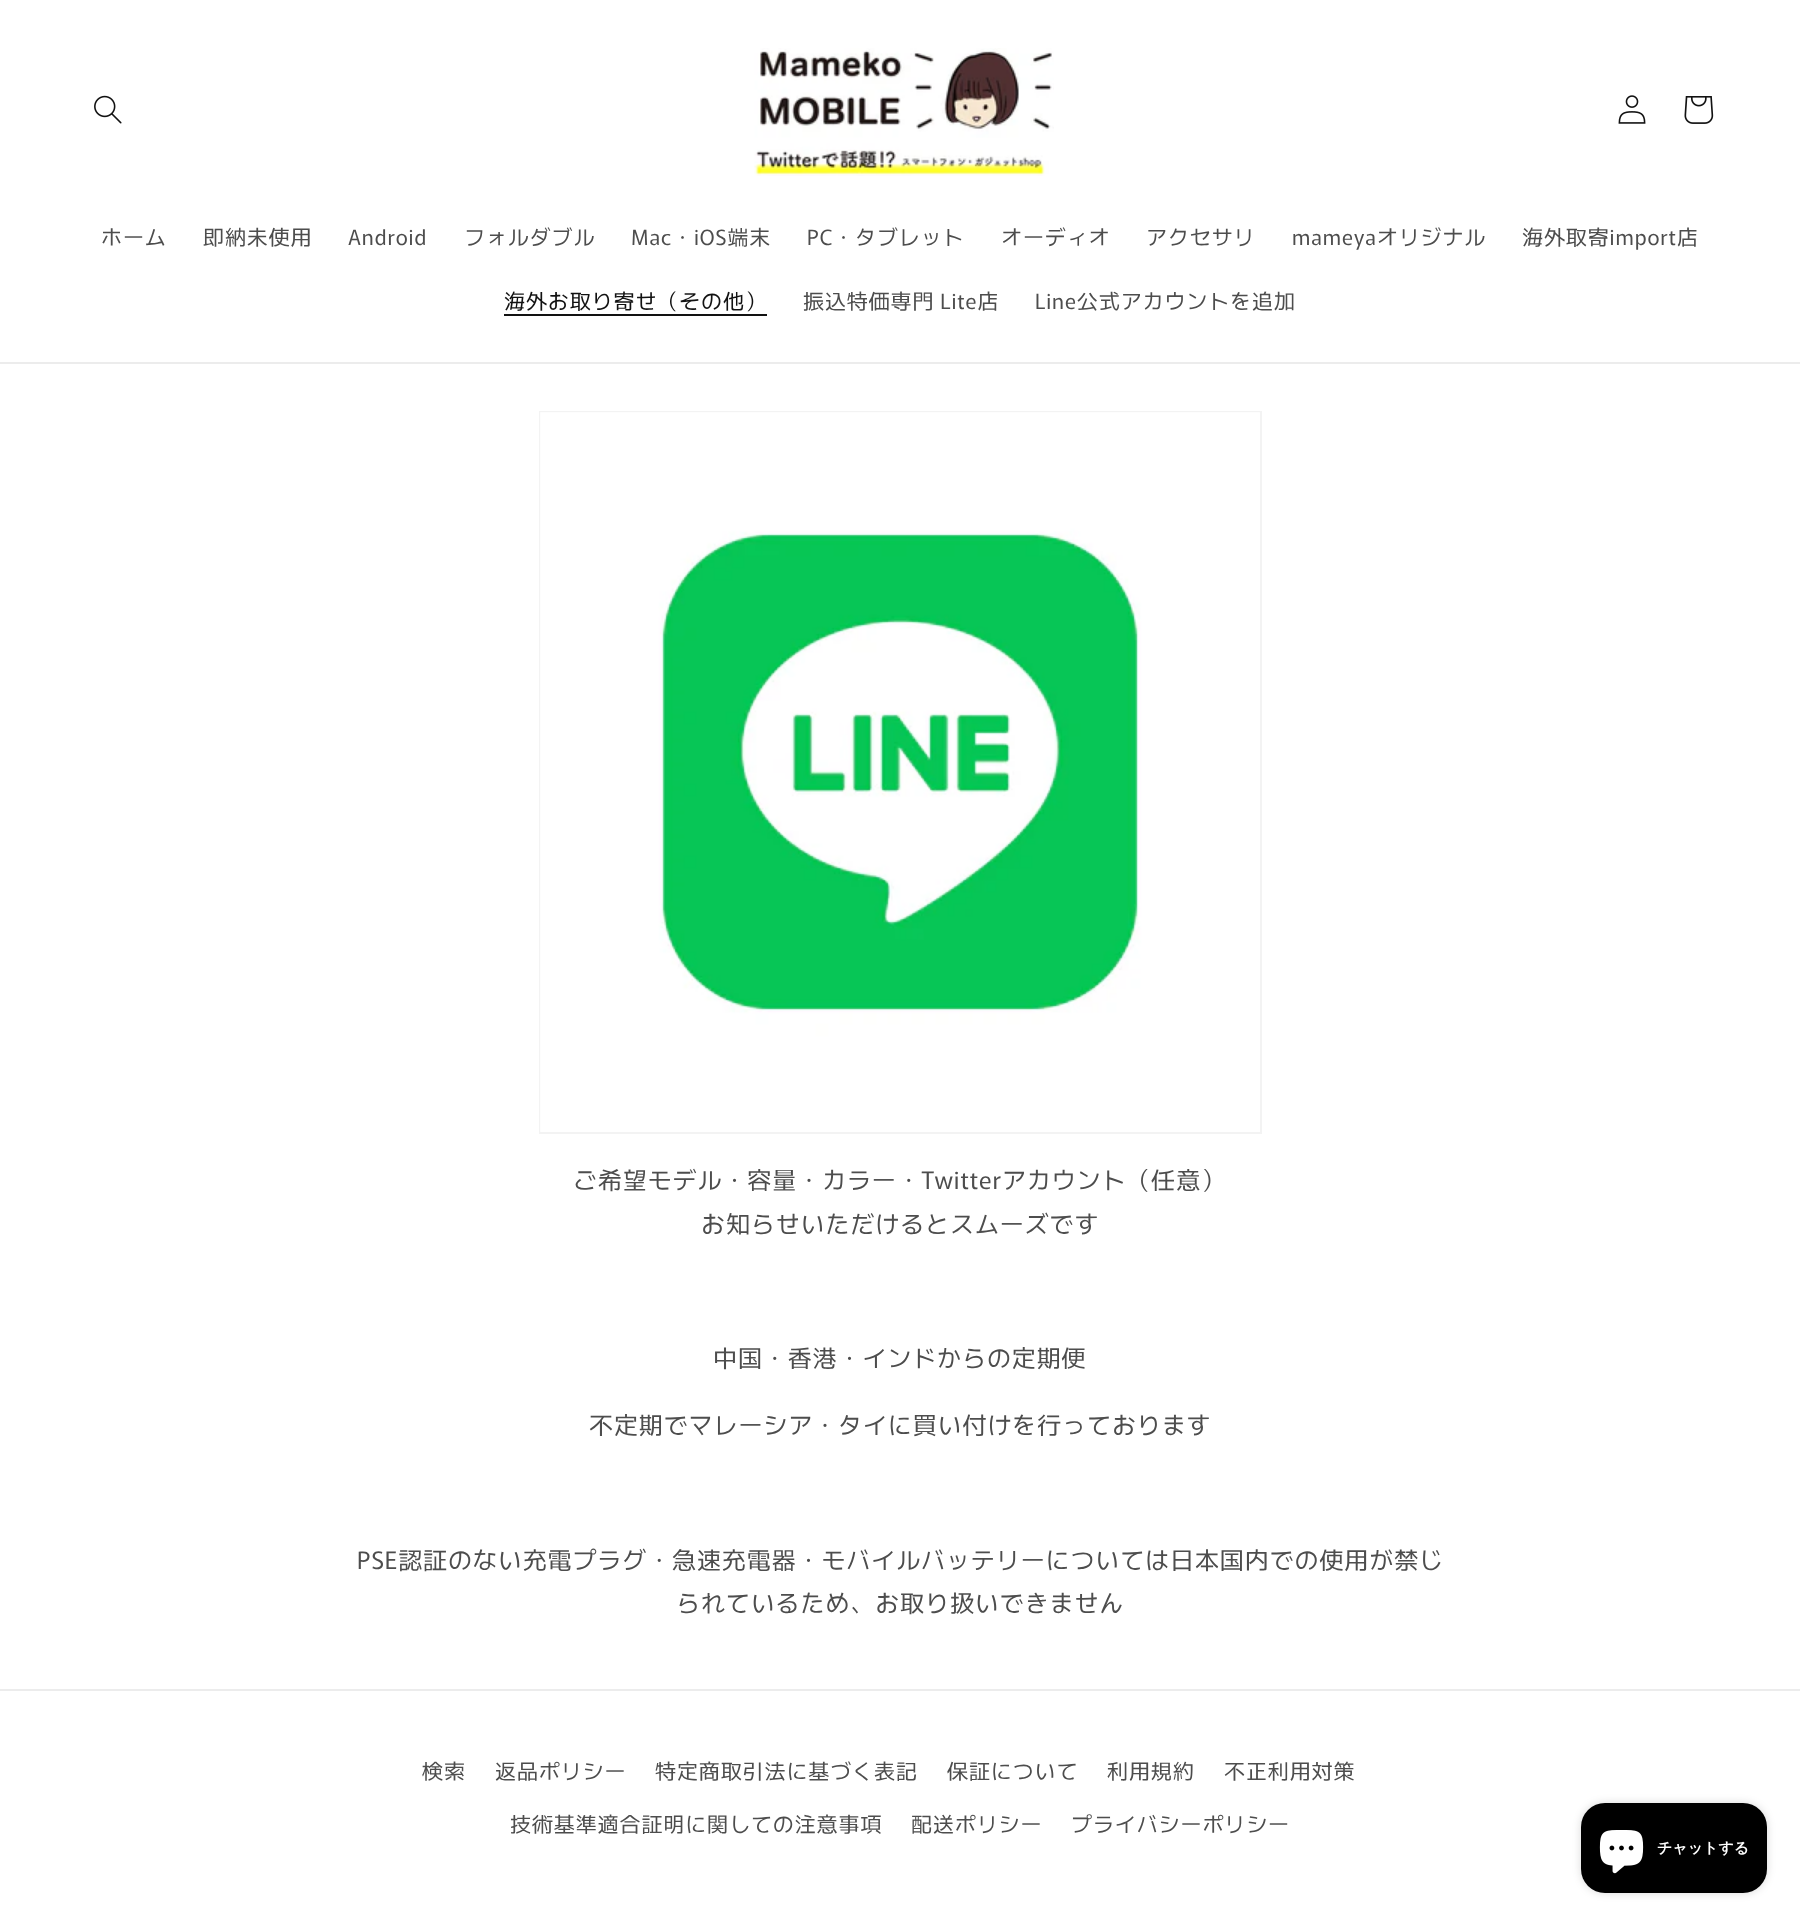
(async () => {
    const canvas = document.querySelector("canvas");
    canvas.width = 1800;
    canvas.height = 1924;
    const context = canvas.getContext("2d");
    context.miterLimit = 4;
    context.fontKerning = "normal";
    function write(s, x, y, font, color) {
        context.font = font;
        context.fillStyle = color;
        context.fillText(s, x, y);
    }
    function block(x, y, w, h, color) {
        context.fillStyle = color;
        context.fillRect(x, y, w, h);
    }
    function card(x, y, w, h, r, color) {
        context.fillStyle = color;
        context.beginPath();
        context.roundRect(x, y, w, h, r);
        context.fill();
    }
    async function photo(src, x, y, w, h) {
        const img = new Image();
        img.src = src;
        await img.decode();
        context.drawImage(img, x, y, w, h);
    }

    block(0, 0, 1800, 1924, "rgb(255, 255, 255)");
    block(0, 362, 1800, 2, "rgba(18, 18, 18, 0.08)");
    await photo("media/1.png", 94, 95, 28, 29);
    await photo("media/2.png", 754, 48, 300, 128);
    await photo("media/3.png", 1618, 95, 28, 29);
    await photo("media/4.png", 1684, 96, 30, 28);
    context.letterSpacing = "0.9px";
    write("ホーム", 101, 245, "21px Murecho", "rgb(77, 77, 77)");
    write("即納未使用", 203, 245, "21px Murecho", "rgb(77, 77, 77)");
    write("Android", 348, 245, "21px Murecho", "rgb(77, 77, 77)");
    write("フォルダブル", 464, 245, "21px Murecho", "rgb(77, 77, 77)");
    write("Mac・iOS端末", 631, 245, "21px Murecho", "rgb(77, 77, 77)");
    write("PC・タブレット", 807, 245, "21px Murecho", "rgb(77, 77, 77)");
    write("オーディオ", 1001, 245, "21px Murecho", "rgb(77, 77, 77)");
    write("アクセサリ", 1146, 245, "21px Murecho", "rgb(77, 77, 77)");
    write("mameyaオリジナル", 1292, 245, "21px Murecho", "rgb(77, 77, 77)");
    write("海外取寄import店", 1522, 245, "21px Murecho", "rgb(77, 77, 77)");
    write("海外お取り寄せ（その他）", 504, 309, "21px Murecho", "rgb(18, 18, 18)");
    block(504, 314, 263, 2, "rgb(18, 18, 18)");
    write("振込特価専門 Lite店", 803, 309, "21px Murecho", "rgb(77, 77, 77)");
    write("Line公式アカウントを追加", 1035, 309, "21px Murecho", "rgb(77, 77, 77)");
    context.strokeStyle = "rgb(243, 243, 243)";
    context.lineWidth = 2;
    context.strokeRect(540, 412, 721, 721);
    await photo("media/5.png", 540, 412, 720, 720);
    write("ご希望モデル・容量・カラー・Twitterアカウント（任意）", 573, 1189, "24px Murecho", "rgb(77, 77, 77)");
    write("お知らせいただけるとスムーズです", 701, 1233, "24px Murecho", "rgb(77, 77, 77)");
    write("中国・香港・インドからの定期便", 713, 1367, "24px Murecho", "rgb(77, 77, 77)");
    write("不定期でマレーシア・タイに買い付けを行っております", 589, 1434, "24px Murecho", "rgb(77, 77, 77)");
    write("PSE認証のない充電プラグ・急速充電器・モバイルバッテリーについては日本国内での使用が禁じ", 357, 1569, "24px Murecho", "rgb(77, 77, 77)");
    write("られているため、お取り扱いできません", 676, 1612, "24px Murecho", "rgb(77, 77, 77)");
    block(0, 1689, 1800, 2, "rgb(236, 236, 236)");
    write("検索", 422, 1779, "21px Murecho", "rgb(77, 77, 77)");
    write("返品ポリシー", 495, 1779, "21px Murecho", "rgb(77, 77, 77)");
    write("特定商取引法に基づく表記", 655, 1779, "21px Murecho", "rgb(77, 77, 77)");
    write("保証について", 947, 1779, "21px Murecho", "rgb(77, 77, 77)");
    write("利用規約", 1107, 1779, "21px Murecho", "rgb(77, 77, 77)");
    write("不正利用対策", 1224, 1779, "21px Murecho", "rgb(77, 77, 77)");
    write("技術基準適合証明に関しての注意事項", 510, 1832, "21px Murecho", "rgb(77, 77, 77)");
    write("配送ポリシー", 911, 1832, "21px Murecho", "rgb(77, 77, 77)");
    write("プライバシーポリシー", 1071, 1832, "21px Murecho", "rgb(77, 77, 77)");
    context.fillStyle = "rgba(0, 0, 0, 0.15)";
    context.filter = "blur(4px)";
    context.beginPath();
    context.roundRect(1581, 1803, 186, 90, 24);
    context.fill();
    context.filter = "none";
    card(1581, 1803, 186, 90, 24, "rgb(0, 0, 0)");
    await photo("media/6.png", 1599, 1830, 45, 44);
    context.letterSpacing = "0px";
    write("チャットする", 1657, 1853, "bold 15px WenQuanYi Zen Hei", "rgb(255, 255, 255)");
})();
